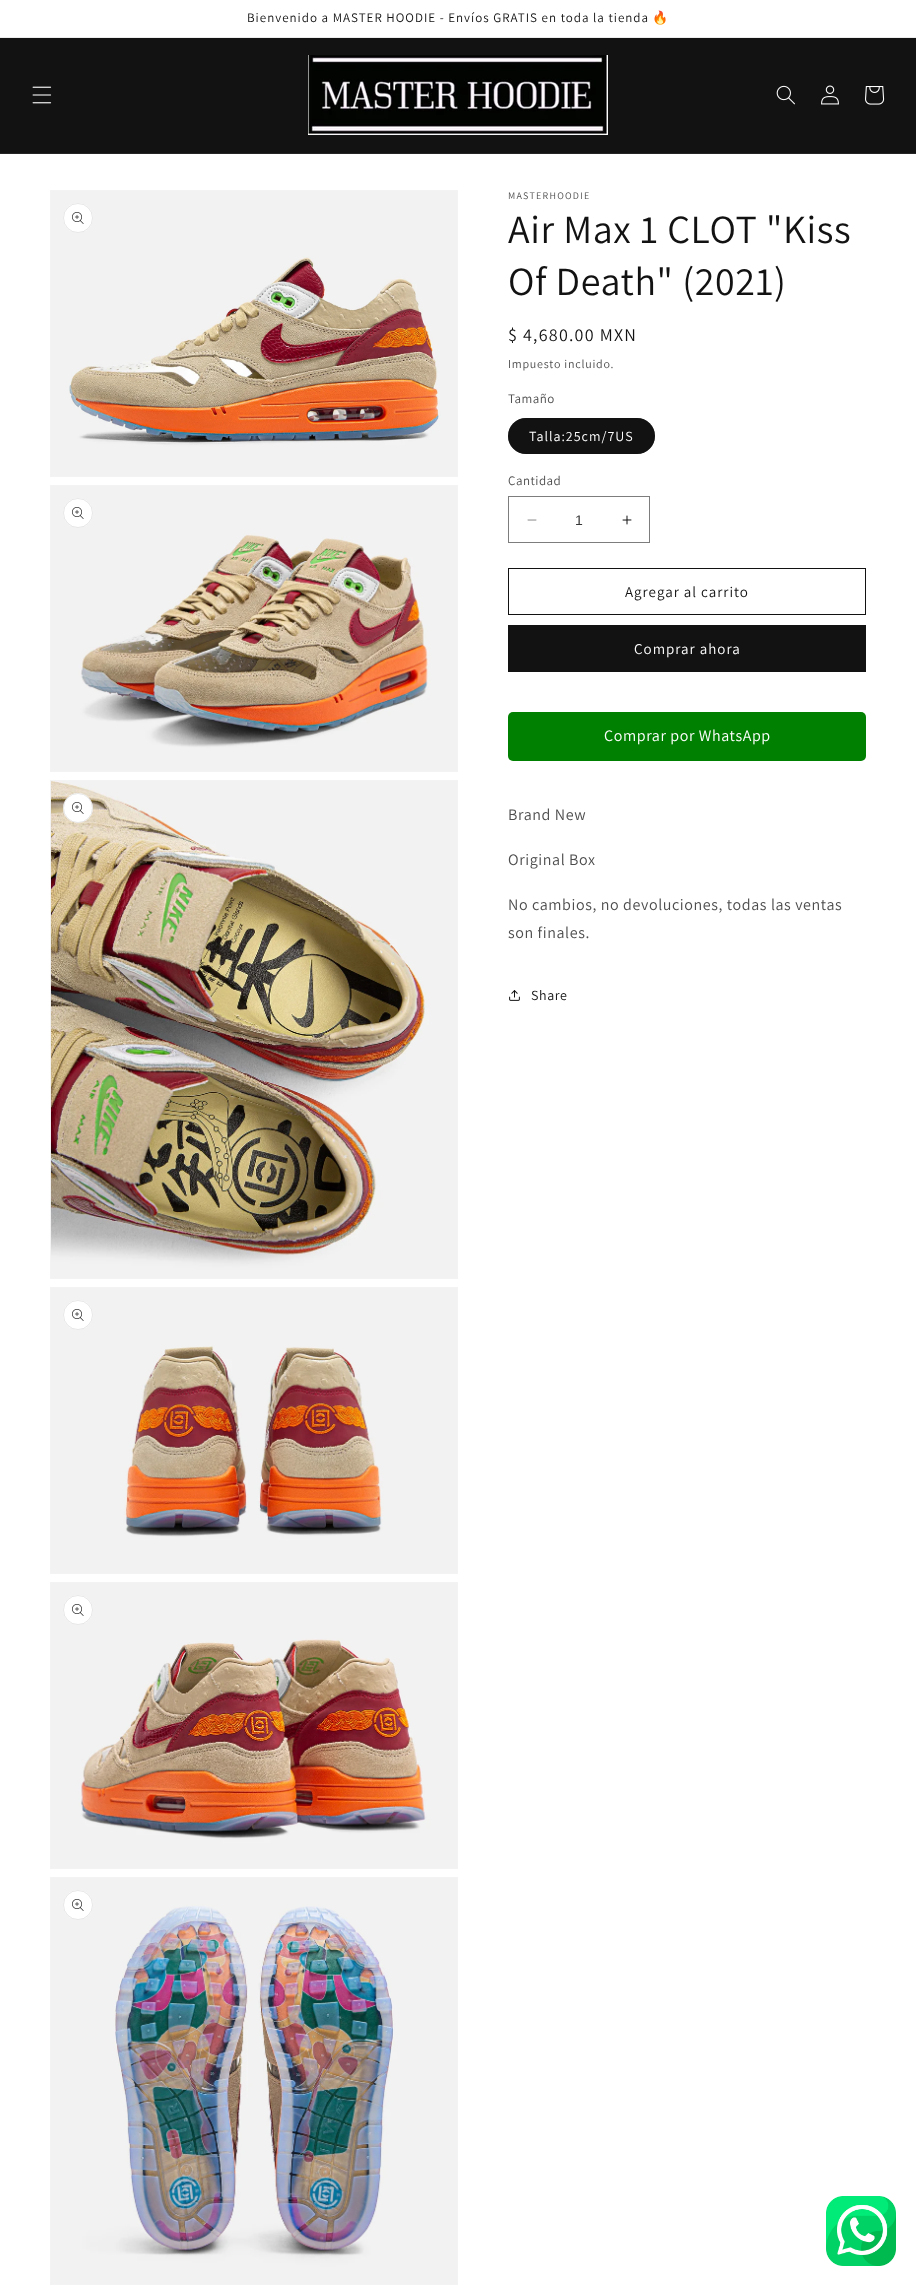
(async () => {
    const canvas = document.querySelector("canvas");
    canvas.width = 916;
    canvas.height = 2286;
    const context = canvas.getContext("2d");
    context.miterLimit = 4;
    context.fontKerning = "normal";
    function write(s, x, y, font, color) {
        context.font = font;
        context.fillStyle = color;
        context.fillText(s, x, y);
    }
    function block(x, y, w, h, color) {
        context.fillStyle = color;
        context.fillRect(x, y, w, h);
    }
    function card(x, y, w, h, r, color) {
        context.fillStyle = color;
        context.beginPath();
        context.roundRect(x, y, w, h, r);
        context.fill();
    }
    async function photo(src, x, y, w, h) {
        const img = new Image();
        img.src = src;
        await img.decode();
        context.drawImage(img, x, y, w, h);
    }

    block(0, 0, 916, 2286, "rgb(255, 255, 255)");
    block(0, 37, 916, 1, "rgb(236, 236, 236)");
    context.letterSpacing = "1px";
    write("Bienvenido a MASTER HOODIE - Envíos GRATIS en toda la tienda", 247, 22, "13px Assistant", "rgb(18, 18, 18)");
    write("🔥", 652, 22, "13px Noto Color Emoji", "rgb(18, 18, 18)");
    block(0, 38, 916, 115, "rgb(18, 18, 18)");
    block(0, 153, 916, 1, "rgb(37, 37, 37)");
    await photo("media/1.png", 32, 86, 20, 18);
    await photo("media/2.png", 308, 55, 300, 80);
    await photo("media/3.png", 776, 85, 19, 20);
    await photo("media/4.png", 821, 85, 18, 20);
    await photo("media/5.png", 865, 86, 20, 19);
    context.strokeStyle = "rgb(243, 243, 243)";
    context.strokeRect(50.5, 190.5, 407, 286);
    await photo("media/6.png", 51, 191, 406, 285);
    context.fillStyle = "rgb(255, 255, 255)";
    context.beginPath();
    context.arc(78, 218, 15, 0, Math.PI * 2);
    context.fill();
    context.beginPath();
    context.arc(78, 218, 14.5, 0, Math.PI * 2);
    context.strokeStyle = "rgba(18, 18, 18, 0.1)";
    context.stroke();
    await photo("media/7.png", 72, 212, 12, 12);
    context.strokeStyle = "rgb(243, 243, 243)";
    context.strokeRect(50.5, 485.5, 407, 286);
    await photo("media/8.png", 51, 486, 406, 285);
    context.beginPath();
    context.arc(78, 513, 15, 0, Math.PI * 2);
    context.fill();
    context.beginPath();
    context.arc(78, 513, 14.5, 0, Math.PI * 2);
    context.strokeStyle = "rgba(18, 18, 18, 0.1)";
    context.stroke();
    await photo("media/7.png", 72, 507, 12, 12);
    context.strokeStyle = "rgb(243, 243, 243)";
    context.strokeRect(50.5, 780.5, 407, 498);
    await photo("media/9.png", 51, 781, 406, 497);
    context.beginPath();
    context.arc(78, 808, 15, 0, Math.PI * 2);
    context.fill();
    context.beginPath();
    context.arc(78, 808, 14.5, 0, Math.PI * 2);
    context.strokeStyle = "rgba(18, 18, 18, 0.1)";
    context.stroke();
    await photo("media/7.png", 72, 802, 12, 12);
    context.strokeStyle = "rgb(243, 243, 243)";
    context.strokeRect(50.5, 1287.5, 407, 286);
    await photo("media/10.png", 51, 1288, 406, 285);
    context.beginPath();
    context.arc(78, 1315, 15, 0, Math.PI * 2);
    context.fill();
    context.beginPath();
    context.arc(78, 1315, 14.5, 0, Math.PI * 2);
    context.strokeStyle = "rgba(18, 18, 18, 0.1)";
    context.stroke();
    await photo("media/7.png", 72, 1309, 12, 12);
    context.strokeStyle = "rgb(243, 243, 243)";
    context.strokeRect(50.5, 1582.5, 407, 286);
    await photo("media/11.png", 51, 1583, 406, 285);
    context.beginPath();
    context.arc(78, 1610, 15, 0, Math.PI * 2);
    context.fill();
    context.beginPath();
    context.arc(78, 1610, 14.5, 0, Math.PI * 2);
    context.strokeStyle = "rgba(18, 18, 18, 0.1)";
    context.stroke();
    await photo("media/7.png", 72, 1604, 12, 12);
    context.strokeStyle = "rgb(243, 243, 243)";
    context.strokeRect(50.5, 1877.5, 407, 407);
    await photo("media/12.png", 51, 1878, 406, 406);
    context.beginPath();
    context.arc(78, 1905, 15, 0, Math.PI * 2);
    context.fill();
    context.beginPath();
    context.arc(78, 1905, 14.5, 0, Math.PI * 2);
    context.strokeStyle = "rgba(18, 18, 18, 0.1)";
    context.stroke();
    await photo("media/7.png", 72, 1899, 12, 12);
    context.letterSpacing = "1.25px";
    write("MASTERHOODIE", 508, 199, "10px Assistant", "rgb(77, 77, 77)");
    context.letterSpacing = "0.6px";
    write("Air Max 1 CLOT \"Kiss", 508, 243, "40px Assistant", "rgb(18, 18, 18)");
    write("Of Death\" (2021)", 508, 295, "40px Assistant", "rgb(18, 18, 18)");
    context.letterSpacing = "1.25px";
    write("$ 4,680.00 MXN", 508, 341, "18px Assistant", "rgb(18, 18, 18)");
    context.letterSpacing = "0.75px";
    write("Impuesto incluido.", 508, 368, "12px Assistant", "rgb(77, 77, 77)");
    context.letterSpacing = "0.5px";
    write("Tamaño", 508, 403, "13px Assistant", "rgb(77, 77, 77)");
    card(508, 418, 147, 36, 18, "rgb(18, 18, 18)");
    context.beginPath();
    context.roundRect(508.5, 418.5, 146, 35, 17.5);
    context.strokeStyle = "rgba(18, 18, 18, 0.55)";
    context.stroke();
    context.letterSpacing = "1px";
    write("Talla:25cm/7US", 529, 441, "14px Assistant", "rgb(255, 255, 255)");
    context.letterSpacing = "0.5px";
    write("Cantidad", 508, 485, "13px Assistant", "rgb(77, 77, 77)");
    await photo("media/13.png", 527, 519, 10, 2);
    await photo("media/14.png", 622, 515, 10, 10);
    context.strokeStyle = "rgb(125, 125, 125)";
    context.strokeRect(508.5, 496.5, 141, 46);
    context.letterSpacing = "0px";
    write("1", 575, 525, "14px Liberation Sans", "rgb(54, 54, 54)");
    context.strokeStyle = "rgb(18, 18, 18)";
    context.strokeRect(508.5, 568.5, 357, 46);
    context.letterSpacing = "1px";
    write("Agregar al carrito", 625, 597, "15px Assistant", "rgb(18, 18, 18)");
    block(508, 625, 358, 47, "rgb(18, 18, 18)");
    write("Comprar ahora", 634, 654, "15px Assistant", "rgb(255, 255, 255)");
    card(508, 712, 358, 49, 5, "rgb(0, 128, 0)");
    context.letterSpacing = "0.6px";
    write("Comprar por WhatsApp", 604, 741, "16px Assistant", "rgb(255, 255, 255)");
    write("Brand New", 508, 820, "16px Assistant", "rgb(77, 77, 77)");
    write("Original Box", 508, 865, "16px Assistant", "rgb(77, 77, 77)");
    write("No cambios, no devoluciones, todas las ventas", 508, 910, "16px Assistant", "rgb(77, 77, 77)");
    write("son finales.", 508, 938, "16px Assistant", "rgb(77, 77, 77)");
    await photo("media/15.png", 509, 990, 11, 11);
    write("Share", 531, 1000, "14px Assistant", "rgb(18, 18, 18)");
    await photo("media/16.png", 826, 2196, 70, 70);
})();
